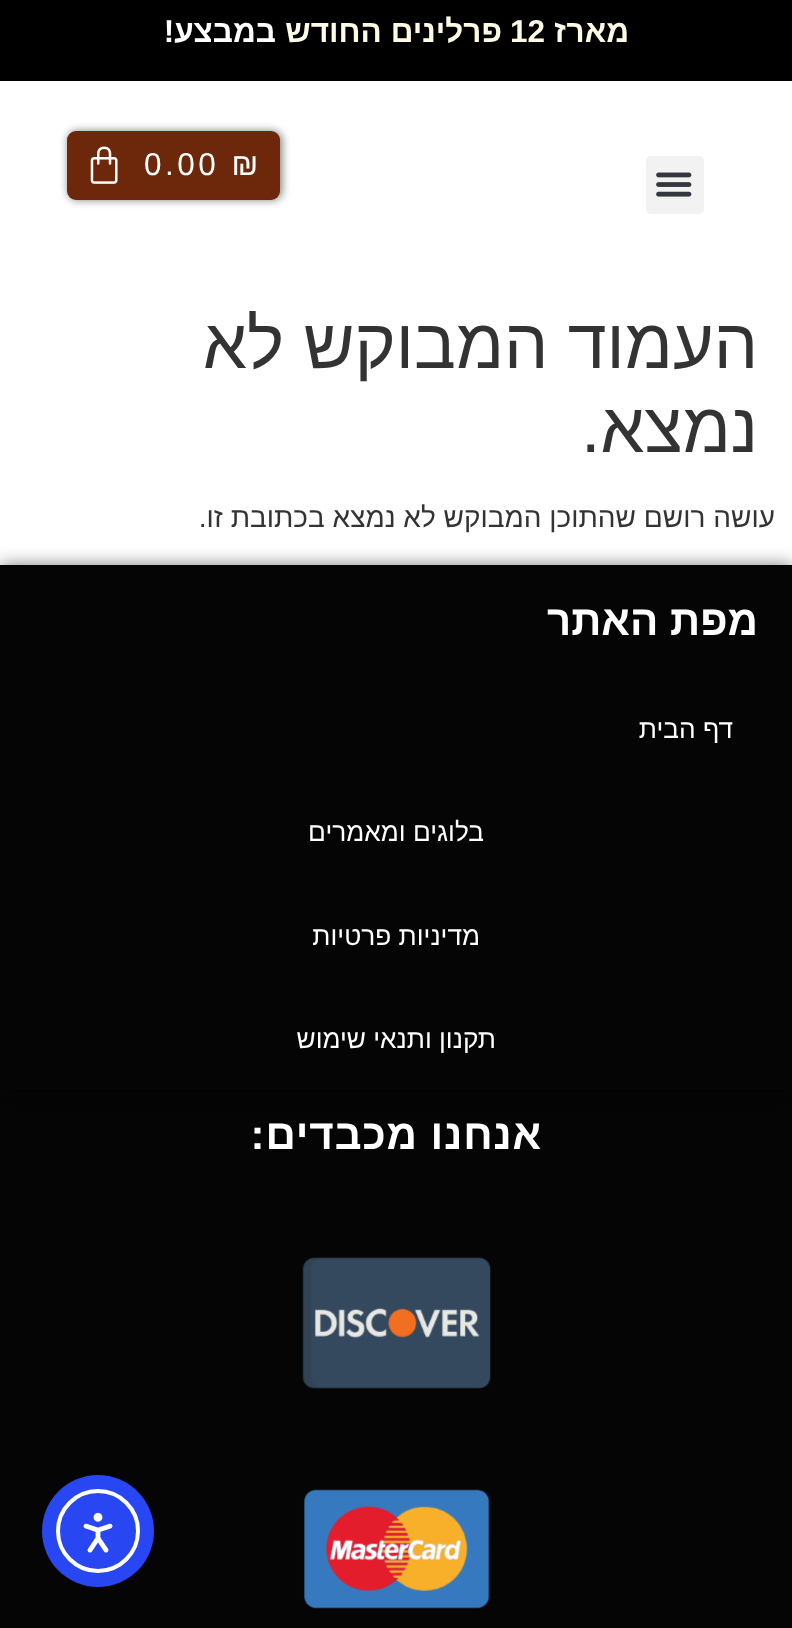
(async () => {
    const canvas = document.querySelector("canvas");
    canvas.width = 792;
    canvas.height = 1628;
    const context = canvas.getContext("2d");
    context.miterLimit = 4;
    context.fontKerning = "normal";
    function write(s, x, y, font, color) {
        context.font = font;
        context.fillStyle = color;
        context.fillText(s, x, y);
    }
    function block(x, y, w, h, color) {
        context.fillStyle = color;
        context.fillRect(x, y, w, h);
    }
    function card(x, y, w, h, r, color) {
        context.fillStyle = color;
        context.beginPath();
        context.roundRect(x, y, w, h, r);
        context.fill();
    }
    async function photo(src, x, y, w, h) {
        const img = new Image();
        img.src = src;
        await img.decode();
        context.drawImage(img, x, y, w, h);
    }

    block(0, 0, 792, 1628, "rgb(255, 255, 255)");
    block(0, 0, 792, 81, "rgb(0, 0, 0)");
    context.direction = "rtl";
    write("מארז", 629, 42, "bold 31.5px Liberation Sans", "rgb(255, 250, 228)");
    context.direction = "ltr";
    write("12", 510, 42, "bold 31.5px Liberation Sans", "rgb(255, 250, 228)");
    context.direction = "rtl";
    write("פרלינים החודש", 502, 42, "bold 31.5px Liberation Sans", "rgb(255, 250, 228)");
    write("במבצע!", 276, 42, "bold 31.5px Liberation Sans", "rgb(255, 255, 255)");
    card(646, 156, 58, 58, 5, "rgb(242, 242, 242)");
    await photo("media/1.png", 656, 172, 36, 25);
    context.fillStyle = "rgba(0, 0, 0, 0.5)";
    context.filter = "blur(4.5px)";
    context.beginPath();
    context.roundRect(68, 131, 214, 69, 9);
    context.fill();
    context.filter = "none";
    card(67, 131, 213, 69, 9, "rgb(109, 40, 12)");
    context.letterSpacing = "3.5px";
    context.direction = "ltr";
    write("0.00 ₪", 144, 175, "31.5px Liberation Sans", "rgb(255, 255, 255)");
    await photo("media/2.png", 90, 146, 28, 38);
    context.letterSpacing = "0px";
    context.direction = "rtl";
    write("העמוד המבוקש לא", 758, 368, "70px Liberation Sans", "rgb(51, 51, 51)");
    write("נמצא.", 758, 452, "70px Liberation Sans", "rgb(51, 51, 51)");
    write("עושה רושם שהתוכן המבוקש לא נמצא בכתובת זו.", 775, 527, "28px Liberation Sans", "rgb(51, 51, 51)");
    block(0, 565, 792, 1063, "rgb(5, 5, 5)");
    context.save();
    context.beginPath();
    context.moveTo(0, 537);
    context.lineTo(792, 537);
    context.lineTo(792, 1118);
    context.lineTo(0, 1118);
    context.closePath();
    context.moveTo(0, 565);
    context.lineTo(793, 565);
    context.lineTo(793, 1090);
    context.lineTo(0, 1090);
    context.closePath();
    context.clip("evenodd");
    context.fillStyle = "rgba(0, 0, 0, 0.5)";
    context.filter = "blur(9px)";
    context.beginPath();
    context.rect(0, 565, 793, 525);
    context.fill();
    context.filter = "none";
    context.restore();
    write("מפת האתר", 758, 635, "bold 42px Liberation Sans", "rgb(255, 255, 255)");
    write("דף הבית", 733, 738, "26.25px Liberation Sans", "rgb(255, 255, 255)");
    write("בלוגים ומאמרים", 484, 841, "26.25px Liberation Sans", "rgb(255, 255, 255)");
    write("מדיניות פרטיות", 480, 945, "26.25px Liberation Sans", "rgb(255, 255, 255)");
    write("תקנון ותנאי שימוש", 496, 1048, "26.25px Liberation Sans", "rgb(255, 255, 255)");
    context.letterSpacing = "0.9px";
    write("אנחנו מכבדים:", 542, 1149, "bold 42px Liberation Sans", "rgb(255, 255, 255)");
    await photo("media/3.png", 302, 1257, 189, 132);
    await photo("media/4.png", 304, 1489, 186, 120);
    context.fillStyle = "rgb(40, 71, 243)";
    context.beginPath();
    context.arc(98, 1531, 56, 0, Math.PI * 2);
    context.fill();
    context.beginPath();
    context.arc(98, 1531, 40, 0, Math.PI * 2);
    context.strokeStyle = "rgb(255, 255, 255)";
    context.lineWidth = 4;
    context.stroke();
    await photo("media/5.png", 83, 1512, 30, 41);
})();
